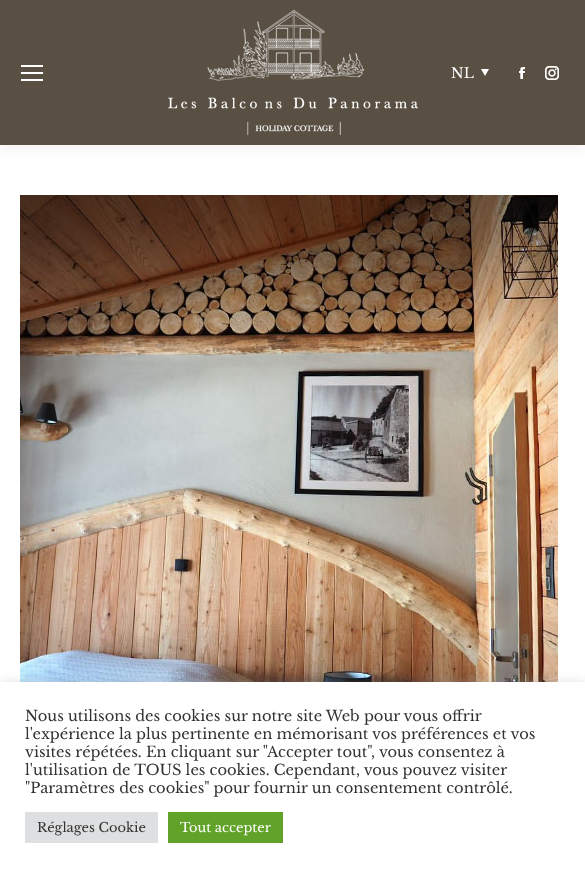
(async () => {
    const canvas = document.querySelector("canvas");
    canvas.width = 585;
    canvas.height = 873;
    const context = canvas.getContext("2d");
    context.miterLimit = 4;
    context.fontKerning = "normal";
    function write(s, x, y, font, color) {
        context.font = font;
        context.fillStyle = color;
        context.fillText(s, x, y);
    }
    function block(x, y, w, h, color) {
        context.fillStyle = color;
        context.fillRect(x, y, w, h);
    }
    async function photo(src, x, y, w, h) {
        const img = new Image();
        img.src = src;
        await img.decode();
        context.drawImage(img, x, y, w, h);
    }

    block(0, 0, 585, 873, "rgb(255, 255, 255)");
    context.fillStyle = "rgba(0, 0, 0, 0.07)";
    context.filter = "blur(7.5px)";
    context.beginPath();
    context.rect(-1, -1, 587, 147);
    context.fill();
    context.filter = "none";
    block(0, 0, 585, 145, "rgb(89, 79, 66)");
    block(21, 65, 22, 2, "rgb(255, 255, 255)");
    block(21, 72, 22, 2, "rgb(255, 255, 255)");
    block(21, 79, 22, 2, "rgb(255, 255, 255)");
    await photo("media/1.png", 168, 10, 250, 125);
    write("NL", 451, 78, "14px Libre Baskerville", "rgb(255, 255, 255)");
    context.beginPath();
    context.moveTo(481, 69);
    context.lineTo(489, 69);
    context.lineTo(485, 76);
    context.closePath();
    context.fill();
    await photo("media/2.png", 519, 67, 6, 12);
    await photo("media/3.png", 545, 66, 14, 14);
    await photo("media/4.png", 20, 195, 538, 487);
    context.fillStyle = "rgba(172, 171, 171, 0.3)";
    context.filter = "blur(5px)";
    context.beginPath();
    context.rect(0, 681, 585, 191);
    context.fill();
    context.filter = "none";
    block(0, 682, 585, 191, "rgb(255, 255, 255)");
    write("Nous utilisons des cookies sur notre site Web pour vous offrir", 25, 721, "14.65px Libre Baskerville", "rgb(51, 51, 51)");
    write("l'expérience la plus pertinente en mémorisant vos préférences et vos", 25, 739, "14.65px Libre Baskerville", "rgb(51, 51, 51)");
    write("visites répétées. En cliquant sur \"Accepter tout\", vous consentez à", 25, 757, "14.65px Libre Baskerville", "rgb(51, 51, 51)");
    write("l'utilisation de TOUS les cookies. Cependant, vous pouvez visiter", 25, 775, "14.65px Libre Baskerville", "rgb(51, 51, 51)");
    write("\"Paramètres des cookies\" pour fournir un consentement contrôlé.", 25, 793, "14.65px Libre Baskerville", "rgb(51, 51, 51)");
    block(25, 812, 133, 31, "rgb(222, 223, 224)");
    write("Réglages Cookie", 37, 832, "13px Libre Baskerville", "rgb(51, 51, 51)");
    block(168, 812, 115, 31, "rgb(97, 162, 41)");
    write("Tout accepter", 180, 832, "13px Libre Baskerville", "rgb(255, 255, 255)");
})();
